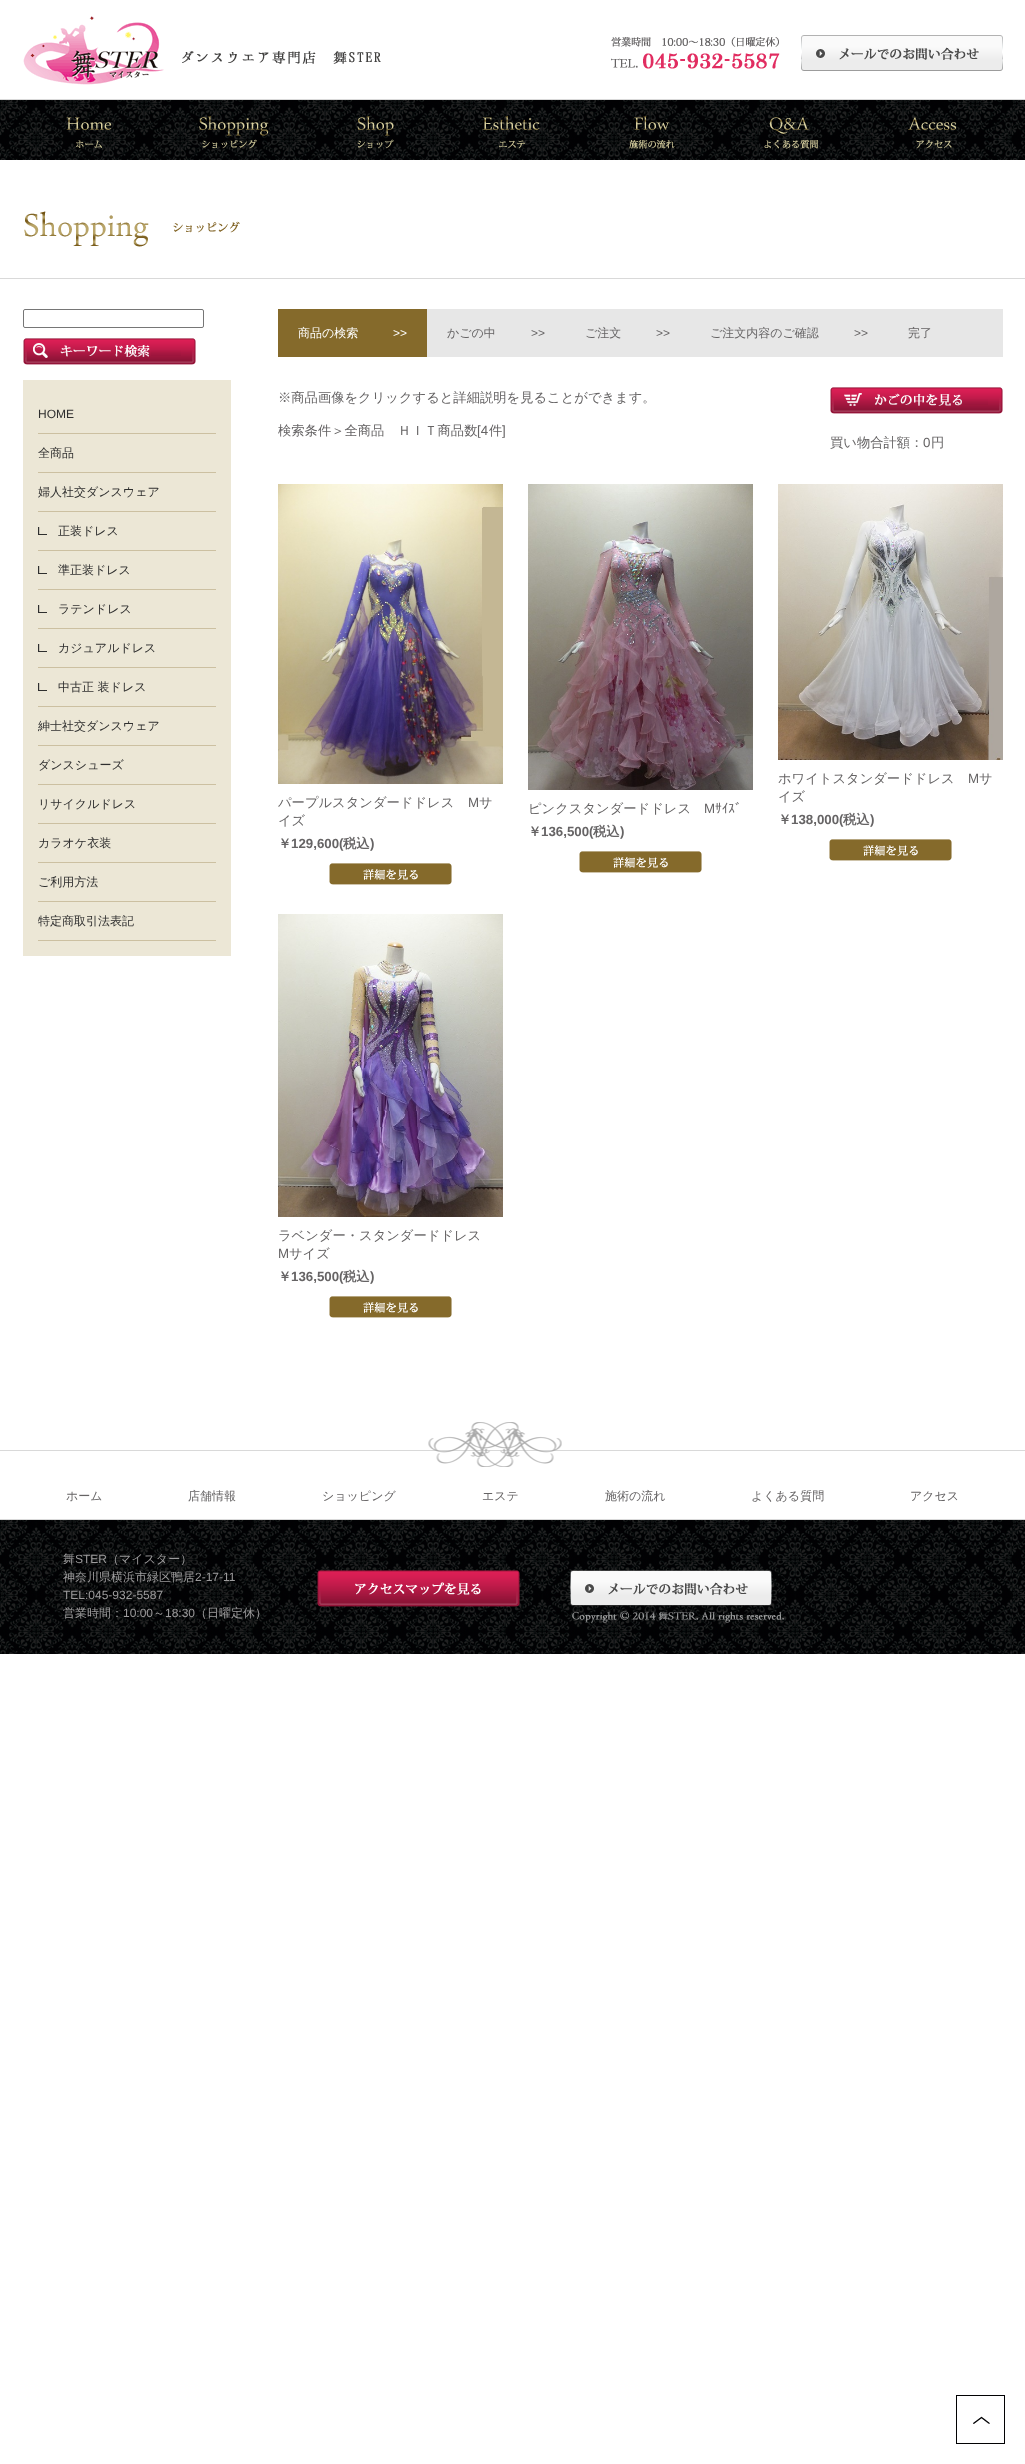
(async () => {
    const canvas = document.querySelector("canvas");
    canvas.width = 1025;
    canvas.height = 2464;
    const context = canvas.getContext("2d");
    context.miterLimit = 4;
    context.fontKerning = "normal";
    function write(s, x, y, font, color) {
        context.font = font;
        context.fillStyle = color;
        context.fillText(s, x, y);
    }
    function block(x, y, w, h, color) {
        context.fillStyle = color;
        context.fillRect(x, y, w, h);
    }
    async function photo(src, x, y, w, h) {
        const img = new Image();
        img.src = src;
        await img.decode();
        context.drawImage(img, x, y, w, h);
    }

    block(0, 0, 1025, 2464, "rgb(255, 255, 255)");
    block(0, 99, 1025, 1, "rgb(217, 217, 217)");
    await photo("media/1.png", 23, 16, 358, 69);
    await photo("media/2.png", 611, 37, 169, 32);
    await photo("media/3.png", 801, 35, 202, 36);
    await photo("media/4.png", 0, 100, 1025, 60);
    await photo("media/5.png", 66, 117, 46, 31);
    await photo("media/6.png", 199, 116, 70, 33);
    await photo("media/7.png", 357, 116, 37, 33);
    await photo("media/8.png", 482, 116, 58, 33);
    await photo("media/9.png", 629, 116, 46, 33);
    await photo("media/10.png", 764, 117, 54, 32);
    await photo("media/11.png", 908, 117, 48, 32);
    block(0, 278, 1025, 1, "rgb(217, 217, 217)");
    await photo("media/12.png", 24, 211, 216, 36);
    context.beginPath();
    context.roundRect(23.5, 309.5, 180, 18, 1.5);
    context.strokeStyle = "rgb(118, 118, 118)";
    context.stroke();
    await photo("media/13.png", 23, 338, 173, 27);
    block(23, 380, 208, 576, "rgb(236, 231, 214)");
    block(38, 433, 178, 1, "rgb(204, 192, 161)");
    write("HOME", 38, 418, "12px Liberation Sans", "rgb(47, 47, 47)");
    block(38, 472, 178, 1, "rgb(204, 192, 161)");
    write("全商品", 38, 457, "500 12px WenQuanYi Zen Hei", "rgb(47, 47, 47)");
    block(38, 511, 178, 1, "rgb(204, 192, 161)");
    write("婦人社交ダンスウェア", 38, 496, "500 12px WenQuanYi Zen Hei", "rgb(47, 47, 47)");
    await photo("media/14.png", 38, 527, 9, 8);
    block(38, 550, 178, 1, "rgb(204, 192, 161)");
    write("正装ドレス", 58, 535, "500 12px WenQuanYi Zen Hei", "rgb(47, 47, 47)");
    await photo("media/14.png", 38, 566, 9, 8);
    block(38, 589, 178, 1, "rgb(204, 192, 161)");
    write("準正装ドレス", 58, 574, "500 12px WenQuanYi Zen Hei", "rgb(47, 47, 47)");
    await photo("media/14.png", 38, 605, 9, 8);
    block(38, 628, 178, 1, "rgb(204, 192, 161)");
    write("ラテンドレス", 58, 613, "500 12px WenQuanYi Zen Hei", "rgb(47, 47, 47)");
    await photo("media/14.png", 38, 644, 9, 8);
    block(38, 667, 178, 1, "rgb(204, 192, 161)");
    write("カジュアルドレス", 58, 652, "500 12px WenQuanYi Zen Hei", "rgb(47, 47, 47)");
    await photo("media/14.png", 38, 683, 9, 8);
    block(38, 706, 178, 1, "rgb(204, 192, 161)");
    write("中古正 装ドレス", 58, 691, "500 12px WenQuanYi Zen Hei", "rgb(47, 47, 47)");
    block(38, 745, 178, 1, "rgb(204, 192, 161)");
    write("紳士社交ダンスウェア", 38, 730, "500 12px WenQuanYi Zen Hei", "rgb(47, 47, 47)");
    block(38, 784, 178, 1, "rgb(204, 192, 161)");
    write("ダンスシューズ", 38, 769, "500 12px WenQuanYi Zen Hei", "rgb(47, 47, 47)");
    block(38, 823, 178, 1, "rgb(204, 192, 161)");
    write("リサイクルドレス", 38, 808, "500 12px WenQuanYi Zen Hei", "rgb(47, 47, 47)");
    block(38, 862, 178, 1, "rgb(204, 192, 161)");
    write("カラオケ衣装", 38, 847, "500 12px WenQuanYi Zen Hei", "rgb(47, 47, 47)");
    block(38, 901, 178, 1, "rgb(204, 192, 161)");
    write("ご利用方法", 38, 886, "500 12px WenQuanYi Zen Hei", "rgb(47, 47, 47)");
    block(38, 940, 178, 1, "rgb(204, 192, 161)");
    write("特定商取引法表記", 38, 925, "500 12px WenQuanYi Zen Hei", "rgb(47, 47, 47)");
    block(427, 309, 576, 48, "rgb(231, 231, 231)");
    block(278, 309, 149, 48, "rgb(133, 106, 43)");
    write("商品の検索", 298, 337, "500 12px WenQuanYi Zen Hei", "rgb(255, 255, 255)");
    write(">>", 393, 337, "12px Liberation Sans", "rgb(255, 255, 255)");
    write("かごの中", 447, 337, "500 12px WenQuanYi Zen Hei", "rgb(102, 100, 101)");
    write(">>", 531, 337, "12px Liberation Sans", "rgb(102, 100, 101)");
    write("ご注文", 585, 337, "500 12px WenQuanYi Zen Hei", "rgb(102, 100, 101)");
    write(">>", 656, 337, "12px Liberation Sans", "rgb(102, 100, 101)");
    write("ご注文内容のご確認", 710, 337, "500 12px WenQuanYi Zen Hei", "rgb(102, 100, 101)");
    write(">>", 854, 337, "12px Liberation Sans", "rgb(102, 100, 101)");
    write("完了", 908, 337, "500 12px WenQuanYi Zen Hei", "rgb(102, 100, 101)");
    write("※商品画像をクリックすると詳細説明を見ることができます。", 278, 402, "500 13.3px WenQuanYi Zen Hei", "rgb(102, 100, 101)");
    write("検索条件＞全商品　ＨＩＴ商品数", 278, 435, "500 13.3px WenQuanYi Zen Hei", "rgb(102, 100, 101)");
    write("[4", 477, 435, "13.3px Liberation Sans", "rgb(102, 100, 101)");
    write("件", 489, 435, "500 13.3px WenQuanYi Zen Hei", "rgb(102, 100, 101)");
    write("]", 502, 435, "13.3px Liberation Sans", "rgb(102, 100, 101)");
    await photo("media/15.png", 830, 387, 173, 27);
    write("買い物合計額：", 830, 447, "500 13.3px WenQuanYi Zen Hei", "rgb(102, 100, 101)");
    write("0", 923, 447, "13.3px Liberation Sans", "rgb(102, 100, 101)");
    write("円", 931, 447, "500 13.3px WenQuanYi Zen Hei", "rgb(102, 100, 101)");
    await photo("media/16.png", 278, 484, 225, 300);
    write("パープルスタンダードドレス", 278, 807, "500 13.3px WenQuanYi Zen Hei", "rgb(102, 100, 101)");
    write("M", 468, 807, "13.3px Liberation Sans", "rgb(102, 100, 101)");
    write("サ", 479, 807, "500 13.3px WenQuanYi Zen Hei", "rgb(102, 100, 101)");
    write("イズ", 278, 825, "500 13.3px WenQuanYi Zen Hei", "rgb(102, 100, 101)");
    write("￥", 278, 848, "bold 13.3px WenQuanYi Zen Hei", "rgb(102, 100, 101)");
    write("129,600(", 291, 848, "bold 13.3px Liberation Sans", "rgb(102, 100, 101)");
    write("税込", 343, 848, "bold 13.3px WenQuanYi Zen Hei", "rgb(102, 100, 101)");
    write(")", 370, 848, "bold 13.3px Liberation Sans", "rgb(102, 100, 101)");
    await photo("media/17.png", 329, 863, 123, 22);
    await photo("media/18.png", 528, 484, 225, 306);
    write("ピンクスタンダードドレス", 528, 813, "500 13.3px WenQuanYi Zen Hei", "rgb(102, 100, 101)");
    write("M", 704, 813, "13.3px Liberation Sans", "rgb(102, 100, 101)");
    write("ｻｲｽﾞ", 715, 813, "13.3px IPAPGothic", "rgb(102, 100, 101)");
    write("￥", 528, 836, "bold 13.3px WenQuanYi Zen Hei", "rgb(102, 100, 101)");
    write("136,500(", 541, 836, "bold 13.3px Liberation Sans", "rgb(102, 100, 101)");
    write("税込", 593, 836, "bold 13.3px WenQuanYi Zen Hei", "rgb(102, 100, 101)");
    write(")", 620, 836, "bold 13.3px Liberation Sans", "rgb(102, 100, 101)");
    await photo("media/17.png", 579, 851, 123, 22);
    await photo("media/19.png", 778, 484, 225, 276);
    write("ホワイトスタンダードドレス", 778, 783, "500 13.3px WenQuanYi Zen Hei", "rgb(102, 100, 101)");
    write("M", 968, 783, "13.3px Liberation Sans", "rgb(102, 100, 101)");
    write("サ", 979, 783, "500 13.3px WenQuanYi Zen Hei", "rgb(102, 100, 101)");
    write("イズ", 778, 801, "500 13.3px WenQuanYi Zen Hei", "rgb(102, 100, 101)");
    write("￥", 778, 824, "bold 13.3px WenQuanYi Zen Hei", "rgb(102, 100, 101)");
    write("138,000(", 791, 824, "bold 13.3px Liberation Sans", "rgb(102, 100, 101)");
    write("税込", 843, 824, "bold 13.3px WenQuanYi Zen Hei", "rgb(102, 100, 101)");
    write(")", 870, 824, "bold 13.3px Liberation Sans", "rgb(102, 100, 101)");
    await photo("media/17.png", 829, 839, 123, 22);
    await photo("media/20.png", 278, 914, 225, 303);
    write("ラベンダー・スタンダードドレス", 278, 1240, "500 13.3px WenQuanYi Zen Hei", "rgb(102, 100, 101)");
    write("M", 278, 1258, "13.3px Liberation Sans", "rgb(102, 100, 101)");
    write("サイズ", 289, 1258, "500 13.3px WenQuanYi Zen Hei", "rgb(102, 100, 101)");
    write("￥", 278, 1281, "bold 13.3px WenQuanYi Zen Hei", "rgb(102, 100, 101)");
    write("136,500(", 291, 1281, "bold 13.3px Liberation Sans", "rgb(102, 100, 101)");
    write("税込", 343, 1281, "bold 13.3px WenQuanYi Zen Hei", "rgb(102, 100, 101)");
    write(")", 370, 1281, "bold 13.3px Liberation Sans", "rgb(102, 100, 101)");
    await photo("media/17.png", 329, 1296, 123, 22);
    await photo("media/21.png", 0, 1422, 1025, 98);
    write("ホーム", 66, 1500, "500 12px WenQuanYi Zen Hei", "rgb(102, 100, 101)");
    write("店舗情報", 188, 1500, "500 12px WenQuanYi Zen Hei", "rgb(102, 100, 101)");
    write("ショッピング", 322, 1500, "500 12px WenQuanYi Zen Hei", "rgb(102, 100, 101)");
    write("エステ", 482, 1500, "500 12px WenQuanYi Zen Hei", "rgb(102, 100, 101)");
    write("施術の流れ", 605, 1500, "500 12px WenQuanYi Zen Hei", "rgb(102, 100, 101)");
    write("よくある質問", 751, 1500, "500 12px WenQuanYi Zen Hei", "rgb(102, 100, 101)");
    write("アクセス", 910, 1500, "500 12px WenQuanYi Zen Hei", "rgb(102, 100, 101)");
    await photo("media/22.png", 0, 1520, 1025, 134);
    write("舞", 63, 1563, "500 12px WenQuanYi Zen Hei", "rgb(157, 156, 157)");
    write("STER", 75, 1563, "12px Liberation Sans", "rgb(157, 156, 157)");
    write("（マイスター）", 107, 1563, "500 12px WenQuanYi Zen Hei", "rgb(157, 156, 157)");
    write("神奈川県横浜市緑区鴨居", 63, 1581, "500 12px WenQuanYi Zen Hei", "rgb(157, 156, 157)");
    write("2-17-11", 195, 1581, "12px Liberation Sans", "rgb(157, 156, 157)");
    write("TEL:045-932-5587", 63, 1599, "12px Liberation Sans", "rgb(157, 156, 157)");
    write("営業時間：", 63, 1617, "500 12px WenQuanYi Zen Hei", "rgb(157, 156, 157)");
    write("10:00", 123, 1617, "12px Liberation Sans", "rgb(157, 156, 157)");
    write("～", 153, 1617, "500 12px WenQuanYi Zen Hei", "rgb(157, 156, 157)");
    write("18:30", 165, 1617, "12px Liberation Sans", "rgb(157, 156, 157)");
    write("（日曜定休）", 195, 1617, "500 12px WenQuanYi Zen Hei", "rgb(157, 156, 157)");
    await photo("media/23.png", 317, 1570, 203, 37);
    await photo("media/24.png", 570, 1570, 202, 36);
    await photo("media/25.png", 572, 1611, 212, 12);
    await photo("media/26.png", 956, 2395, 49, 49);
})();
